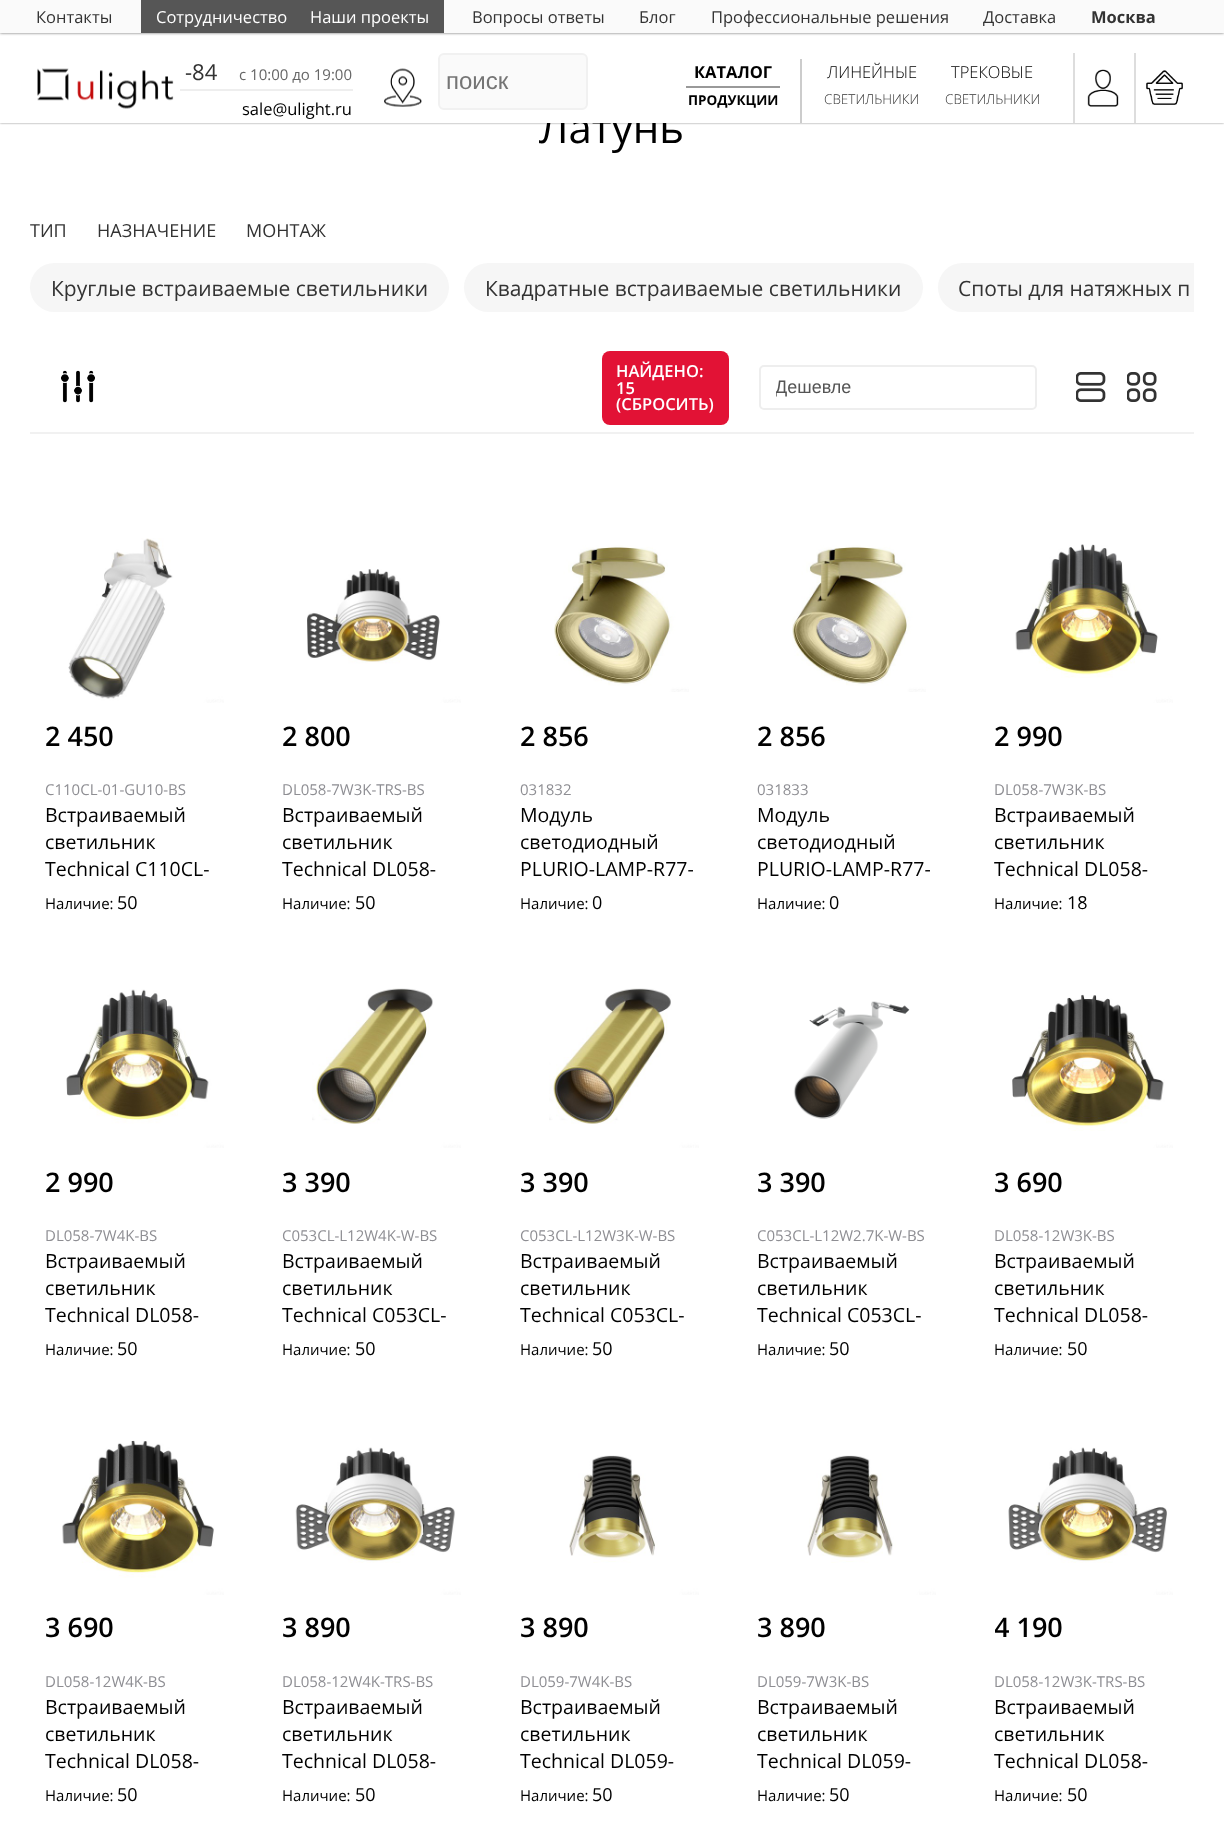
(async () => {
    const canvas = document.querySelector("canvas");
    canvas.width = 1224;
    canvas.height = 1836;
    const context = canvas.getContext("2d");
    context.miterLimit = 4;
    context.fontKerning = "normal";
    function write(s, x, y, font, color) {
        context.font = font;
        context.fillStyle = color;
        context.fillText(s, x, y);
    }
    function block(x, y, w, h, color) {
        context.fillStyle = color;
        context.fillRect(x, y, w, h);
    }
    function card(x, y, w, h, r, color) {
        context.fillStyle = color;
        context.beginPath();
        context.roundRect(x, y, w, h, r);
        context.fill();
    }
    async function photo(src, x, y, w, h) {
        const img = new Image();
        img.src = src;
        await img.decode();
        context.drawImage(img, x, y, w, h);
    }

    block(0, 0, 1224, 1836, "rgb(255, 255, 255)");
    context.fillStyle = "rgb(136, 136, 136)";
    context.filter = "blur(1px)";
    context.beginPath();
    context.rect(0, 0, 1224, 123);
    context.fill();
    context.filter = "none";
    write("Латунь", 539, 143, "42px Open Sans", "rgb(0, 0, 0)");
    block(0, 33, 1224, 90, "rgb(255, 255, 255)");
    context.fillStyle = "rgb(102, 102, 102)";
    context.filter = "blur(1.5px)";
    context.beginPath();
    context.rect(0, 0, 1224, 33);
    context.fill();
    context.filter = "none";
    block(0, 0, 1224, 33, "rgb(250, 250, 250)");
    write("Контакты", 36, 23, "16.5px Open Sans", "rgb(51, 51, 51)");
    block(141, 0, 303, 33, "rgb(86, 86, 86)");
    write("Сотрудничество", 156, 23, "16.5px Open Sans", "rgb(255, 255, 255)");
    write("Наши проекты", 310, 23, "16.5px Open Sans", "rgb(255, 255, 255)");
    write("Вопросы ответы", 472, 23, "16.5px Open Sans", "rgb(51, 51, 51)");
    write("Блог", 639, 23, "16.5px Open Sans", "rgb(51, 51, 51)");
    write("Профессиональные решения", 711, 23, "16.5px Open Sans", "rgb(51, 51, 51)");
    write("Доставка", 983, 23, "16.5px Open Sans", "rgb(51, 51, 51)");
    write("Москва", 1091, 23, "bold 16.5px Open Sans", "rgb(51, 51, 51)");
    await photo("media/1.png", 37, 68, 137, 41);
    block(180, 89, 173, 2, "rgb(238, 238, 238)");
    write("-84", 185, 80, "22px Open Sans", "rgb(51, 51, 51)");
    write("c 10:00 до 19:00", 239, 80, "15px Open Sans", "rgb(102, 102, 102)");
    write("sale@ulight.ru", 242, 115, "16.5px Open Sans", "rgb(0, 0, 0)");
    await photo("media/2.png", 384, 68, 38, 39);
    context.fillStyle = "rgb(250, 250, 250)";
    context.beginPath();
    context.roundRect(439, 54, 148, 55, 5);
    context.fill();
    context.strokeStyle = "rgb(241, 241, 241)";
    context.lineWidth = 2;
    context.stroke();
    write("поиск", 446, 89, "24px Liberation Sans", "rgb(117, 117, 117)");
    block(800, 59, 2, 64, "rgb(204, 204, 204)");
    block(686, 86, 94, 2, "rgb(153, 153, 153)");
    write("КАТАЛОГ", 694, 78, "bold 16.5px Open Sans", "rgb(0, 0, 0)");
    write("ПРОДУКЦИИ", 688, 105, "bold 13.5px Open Sans", "rgb(0, 0, 0)");
    write("ЛИНЕЙНЫЕ", 827, 78, "300 16.5px Open Sans", "rgb(0, 0, 0)");
    write("СВЕТИЛЬНИКИ", 824, 104, "300 13.5px Open Sans", "rgb(51, 51, 51)");
    write("ТРЕКОВЫЕ", 951, 78, "300 16.5px Open Sans", "rgb(0, 0, 0)");
    write("СВЕТИЛЬНИКИ", 945, 104, "300 13.5px Open Sans", "rgb(51, 51, 51)");
    await photo("media/3.png", 1087, 69, 32, 38);
    block(1073, 53, 2, 70, "rgb(221, 221, 221)");
    await photo("media/4.png", 1146, 70, 37, 35);
    block(1134, 53, 2, 70, "rgb(221, 221, 221)");
    write("ТИП", 30, 237, "18px Open Sans", "rgb(51, 51, 51)");
    write("НАЗНАЧЕНИЕ", 97, 237, "18px Open Sans", "rgb(51, 51, 51)");
    write("МОНТАЖ", 246, 237, "18px Open Sans", "rgb(51, 51, 51)");
    card(30, 263, 419, 49, 24.5, "rgb(246, 246, 246)");
    write("Круглые встраиваемые светильники", 51, 296, "21px Open Sans", "rgb(51, 51, 51)");
    card(464, 263, 459, 49, 24.5, "rgb(246, 246, 246)");
    write("Квадратные встраиваемые светильники", 485, 296, "21px Open Sans", "rgb(51, 51, 51)");
    context.fillStyle = "rgb(246, 246, 246)";
    context.beginPath();
    context.roundRect(938, 263, 256, 49, [24.5, 0, 0, 24.5]);
    context.fill();
    write("Споты для натяжных п", 958, 296, "21px Open Sans", "rgb(51, 51, 51)");
    block(30, 432, 1164, 2, "rgb(241, 241, 241)");
    await photo("media/5.png", 61, 370, 34, 33);
    card(602, 351, 127, 74, 8, "rgb(226, 18, 53)");
    write("НАЙДЕНО:", 616, 377, "600 16.5px Open Sans", "rgb(255, 255, 255)");
    write("15", 616, 394, "600 16.5px Open Sans", "rgb(255, 255, 255)");
    write("(СБРОСИТЬ)", 616, 410, "600 16.5px Open Sans", "rgb(255, 255, 255)");
    context.beginPath();
    context.roundRect(760, 366, 276, 43, 4);
    context.strokeStyle = "rgb(238, 238, 238)";
    context.stroke();
    context.save();
    context.beginPath();
    context.rect(776, 377, 244, 21);
    context.clip();
    write("Дешевле", 775, 393, "18px Liberation Sans", "rgb(85, 85, 85)");
    context.restore();
    await photo("media/6.png", 1076, 372, 30, 30);
    await photo("media/7.png", 1127, 372, 30, 30);
    await photo("media/8.png", 68, 538, 156, 165);
    write("2 450", 45, 746, "600 27px Open Sans", "rgb(0, 0, 0)");
    write("C110CL-01-GU10-BS", 45, 795, "15px Open Sans", "rgb(142, 142, 147)");
    write("Встраиваемый", 45, 822, "19.5px Open Sans", "rgb(0, 0, 0)");
    write("светильник", 45, 849, "19.5px Open Sans", "rgb(0, 0, 0)");
    write("Technical C110CL-", 45, 876, "19.5px Open Sans", "rgb(0, 0, 0)");
    write("Наличие:", 45, 909, "15px Open Sans", "rgb(0, 0, 0)");
    write("50", 117, 909, "18px Open Sans", "rgb(0, 0, 0)");
    await photo("media/9.png", 307, 569, 154, 134);
    write("2 800", 282, 746, "600 27px Open Sans", "rgb(0, 0, 0)");
    write("DL058-7W3K-TRS-BS", 282, 795, "15px Open Sans", "rgb(142, 142, 147)");
    write("Встраиваемый", 282, 822, "19.5px Open Sans", "rgb(0, 0, 0)");
    write("светильник", 282, 849, "19.5px Open Sans", "rgb(0, 0, 0)");
    write("Technical DL058-", 282, 876, "19.5px Open Sans", "rgb(0, 0, 0)");
    write("Наличие:", 282, 909, "15px Open Sans", "rgb(0, 0, 0)");
    write("50", 355, 909, "18px Open Sans", "rgb(0, 0, 0)");
    await photo("media/10.png", 554, 545, 135, 147);
    write("2 856", 520, 746, "600 27px Open Sans", "rgb(0, 0, 0)");
    write("031832", 520, 795, "15px Open Sans", "rgb(142, 142, 147)");
    write("Модуль", 520, 822, "19.5px Open Sans", "rgb(0, 0, 0)");
    write("светодиодный", 520, 849, "19.5px Open Sans", "rgb(0, 0, 0)");
    write("PLURIO-LAMP-R77-", 520, 876, "19.5px Open Sans", "rgb(0, 0, 0)");
    write("Наличие:", 520, 909, "15px Open Sans", "rgb(0, 0, 0)");
    write("0", 592, 909, "18px Open Sans", "rgb(0, 0, 0)");
    await photo("media/11.png", 792, 545, 134, 147);
    write("2 856", 757, 746, "600 27px Open Sans", "rgb(0, 0, 0)");
    write("031833", 757, 795, "15px Open Sans", "rgb(142, 142, 147)");
    write("Модуль", 757, 822, "19.5px Open Sans", "rgb(0, 0, 0)");
    write("светодиодный", 757, 849, "19.5px Open Sans", "rgb(0, 0, 0)");
    write("PLURIO-LAMP-R77-", 757, 876, "19.5px Open Sans", "rgb(0, 0, 0)");
    write("Наличие:", 757, 909, "15px Open Sans", "rgb(0, 0, 0)");
    write("0", 829, 909, "18px Open Sans", "rgb(0, 0, 0)");
    await photo("media/12.png", 1015, 544, 158, 159);
    write("2 990", 994, 746, "600 27px Open Sans", "rgb(0, 0, 0)");
    write("DL058-7W3K-BS", 994, 795, "15px Open Sans", "rgb(142, 142, 147)");
    write("Встраиваемый", 994, 822, "19.5px Open Sans", "rgb(0, 0, 0)");
    write("светильник", 994, 849, "19.5px Open Sans", "rgb(0, 0, 0)");
    write("Technical DL058-", 994, 876, "19.5px Open Sans", "rgb(0, 0, 0)");
    write("Наличие:", 994, 909, "15px Open Sans", "rgb(0, 0, 0)");
    write("18", 1067, 909, "18px Open Sans", "rgb(0, 0, 0)");
    await photo("media/13.png", 66, 989, 158, 159);
    write("2 990", 45, 1192, "600 27px Open Sans", "rgb(0, 0, 0)");
    write("DL058-7W4K-BS", 45, 1241, "15px Open Sans", "rgb(142, 142, 147)");
    write("Встраиваемый", 45, 1268, "19.5px Open Sans", "rgb(0, 0, 0)");
    write("светильник", 45, 1295, "19.5px Open Sans", "rgb(0, 0, 0)");
    write("Technical DL058-", 45, 1322, "19.5px Open Sans", "rgb(0, 0, 0)");
    write("Наличие:", 45, 1355, "15px Open Sans", "rgb(0, 0, 0)");
    write("50", 117, 1355, "18px Open Sans", "rgb(0, 0, 0)");
    await photo("media/14.png", 312, 988, 149, 160);
    write("3 390", 282, 1192, "600 27px Open Sans", "rgb(0, 0, 0)");
    write("C053CL-L12W4K-W-BS", 282, 1241, "15px Open Sans", "rgb(142, 142, 147)");
    write("Встраиваемый", 282, 1268, "19.5px Open Sans", "rgb(0, 0, 0)");
    write("светильник", 282, 1295, "19.5px Open Sans", "rgb(0, 0, 0)");
    write("Technical C053CL-", 282, 1322, "19.5px Open Sans", "rgb(0, 0, 0)");
    write("Наличие:", 282, 1355, "15px Open Sans", "rgb(0, 0, 0)");
    write("50", 355, 1355, "18px Open Sans", "rgb(0, 0, 0)");
    await photo("media/15.png", 549, 988, 150, 160);
    write("3 390", 520, 1192, "600 27px Open Sans", "rgb(0, 0, 0)");
    write("C053CL-L12W3K-W-BS", 520, 1241, "15px Open Sans", "rgb(142, 142, 147)");
    write("Встраиваемый", 520, 1268, "19.5px Open Sans", "rgb(0, 0, 0)");
    write("светильник", 520, 1295, "19.5px Open Sans", "rgb(0, 0, 0)");
    write("Technical C053CL-", 520, 1322, "19.5px Open Sans", "rgb(0, 0, 0)");
    write("Наличие:", 520, 1355, "15px Open Sans", "rgb(0, 0, 0)");
    write("50", 592, 1355, "18px Open Sans", "rgb(0, 0, 0)");
    await photo("media/16.png", 793, 1001, 117, 118);
    write("3 390", 757, 1192, "600 27px Open Sans", "rgb(0, 0, 0)");
    write("C053CL-L12W2.7K-W-BS", 757, 1241, "15px Open Sans", "rgb(142, 142, 147)");
    write("Встраиваемый", 757, 1268, "19.5px Open Sans", "rgb(0, 0, 0)");
    write("светильник", 757, 1295, "19.5px Open Sans", "rgb(0, 0, 0)");
    write("Technical C053CL-", 757, 1322, "19.5px Open Sans", "rgb(0, 0, 0)");
    write("Наличие:", 757, 1355, "15px Open Sans", "rgb(0, 0, 0)");
    write("50", 829, 1355, "18px Open Sans", "rgb(0, 0, 0)");
    await photo("media/17.png", 1012, 994, 161, 154);
    write("3 690", 994, 1192, "600 27px Open Sans", "rgb(0, 0, 0)");
    write("DL058-12W3K-BS", 994, 1241, "15px Open Sans", "rgb(142, 142, 147)");
    write("Встраиваемый", 994, 1268, "19.5px Open Sans", "rgb(0, 0, 0)");
    write("светильник", 994, 1295, "19.5px Open Sans", "rgb(0, 0, 0)");
    write("Technical DL058-", 994, 1322, "19.5px Open Sans", "rgb(0, 0, 0)");
    write("Наличие:", 994, 1355, "15px Open Sans", "rgb(0, 0, 0)");
    write("50", 1067, 1355, "18px Open Sans", "rgb(0, 0, 0)");
    await photo("media/18.png", 62, 1440, 162, 155);
    write("3 690", 45, 1637, "600 27px Open Sans", "rgb(0, 0, 0)");
    write("DL058-12W4K-BS", 45, 1687, "15px Open Sans", "rgb(142, 142, 147)");
    write("Встраиваемый", 45, 1714, "19.5px Open Sans", "rgb(0, 0, 0)");
    write("светильник", 45, 1741, "19.5px Open Sans", "rgb(0, 0, 0)");
    write("Technical DL058-", 45, 1768, "19.5px Open Sans", "rgb(0, 0, 0)");
    write("Наличие:", 45, 1801, "15px Open Sans", "rgb(0, 0, 0)");
    write("50", 117, 1801, "18px Open Sans", "rgb(0, 0, 0)");
    await photo("media/19.png", 295, 1447, 166, 148);
    write("3 890", 282, 1637, "600 27px Open Sans", "rgb(0, 0, 0)");
    write("DL058-12W4K-TRS-BS", 282, 1687, "15px Open Sans", "rgb(142, 142, 147)");
    write("Встраиваемый", 282, 1714, "19.5px Open Sans", "rgb(0, 0, 0)");
    write("светильник", 282, 1741, "19.5px Open Sans", "rgb(0, 0, 0)");
    write("Technical DL058-", 282, 1768, "19.5px Open Sans", "rgb(0, 0, 0)");
    write("Наличие:", 282, 1801, "15px Open Sans", "rgb(0, 0, 0)");
    write("50", 355, 1801, "18px Open Sans", "rgb(0, 0, 0)");
    await photo("media/20.png", 569, 1455, 130, 140);
    write("3 890", 520, 1637, "600 27px Open Sans", "rgb(0, 0, 0)");
    write("DL059-7W4K-BS", 520, 1687, "15px Open Sans", "rgb(142, 142, 147)");
    write("Встраиваемый", 520, 1714, "19.5px Open Sans", "rgb(0, 0, 0)");
    write("светильник", 520, 1741, "19.5px Open Sans", "rgb(0, 0, 0)");
    write("Technical DL059-", 520, 1768, "19.5px Open Sans", "rgb(0, 0, 0)");
    write("Наличие:", 520, 1801, "15px Open Sans", "rgb(0, 0, 0)");
    write("50", 592, 1801, "18px Open Sans", "rgb(0, 0, 0)");
    await photo("media/21.png", 807, 1455, 129, 140);
    write("3 890", 757, 1637, "600 27px Open Sans", "rgb(0, 0, 0)");
    write("DL059-7W3K-BS", 757, 1687, "15px Open Sans", "rgb(142, 142, 147)");
    write("Встраиваемый", 757, 1714, "19.5px Open Sans", "rgb(0, 0, 0)");
    write("светильник", 757, 1741, "19.5px Open Sans", "rgb(0, 0, 0)");
    write("Technical DL059-", 757, 1768, "19.5px Open Sans", "rgb(0, 0, 0)");
    write("Наличие:", 757, 1801, "15px Open Sans", "rgb(0, 0, 0)");
    write("50", 829, 1801, "18px Open Sans", "rgb(0, 0, 0)");
    await photo("media/22.png", 1008, 1447, 165, 148);
    context.save();
    context.beginPath();
    context.rect(995, 1608, 184, 48);
    context.clip();
    write("4 190", 994, 1637, "600 27px Open Sans", "rgb(0, 0, 0)");
    context.restore();
    write("DL058-12W3K-TRS-BS", 994, 1687, "15px Open Sans", "rgb(142, 142, 147)");
    write("Встраиваемый", 994, 1714, "19.5px Open Sans", "rgb(0, 0, 0)");
    write("светильник", 994, 1741, "19.5px Open Sans", "rgb(0, 0, 0)");
    write("Technical DL058-", 994, 1768, "19.5px Open Sans", "rgb(0, 0, 0)");
    write("Наличие:", 994, 1801, "15px Open Sans", "rgb(0, 0, 0)");
    write("50", 1067, 1801, "18px Open Sans", "rgb(0, 0, 0)");
})();
